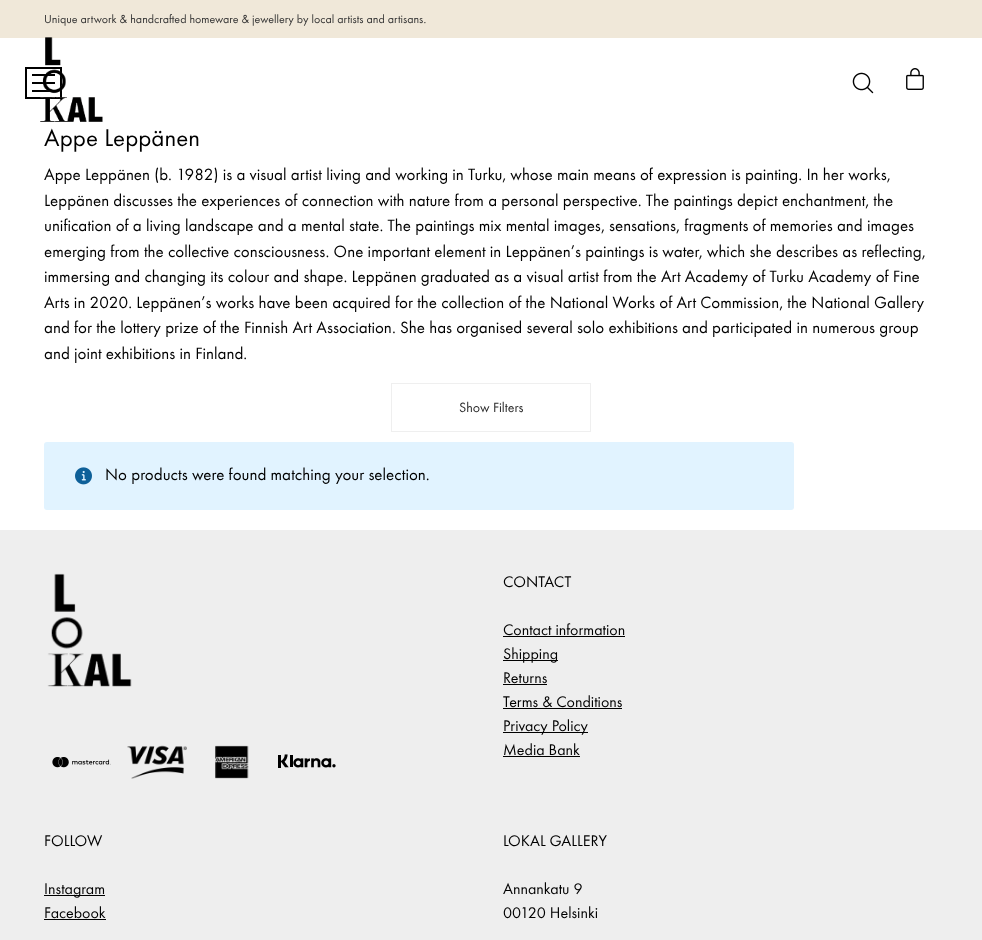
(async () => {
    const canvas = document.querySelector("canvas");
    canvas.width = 982;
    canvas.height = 940;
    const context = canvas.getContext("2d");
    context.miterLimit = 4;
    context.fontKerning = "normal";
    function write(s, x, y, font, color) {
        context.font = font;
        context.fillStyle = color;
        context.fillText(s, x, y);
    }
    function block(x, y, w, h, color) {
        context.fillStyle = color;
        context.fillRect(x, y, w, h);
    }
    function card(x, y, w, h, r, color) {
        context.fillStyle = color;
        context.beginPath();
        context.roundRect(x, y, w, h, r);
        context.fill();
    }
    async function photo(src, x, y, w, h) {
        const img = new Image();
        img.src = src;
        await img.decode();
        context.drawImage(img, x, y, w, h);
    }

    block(0, 0, 982, 940, "rgb(255, 255, 255)");
    block(0, 0, 982, 38, "rgb(240, 232, 217)");
    write("Unique artwork & handcrafted homeware & jewellery by local artists and artisans.", 44, 23, "12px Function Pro", "rgb(51, 51, 51)");
    context.strokeStyle = "rgb(0, 0, 0)";
    context.lineWidth = 2;
    context.strokeRect(26, 68, 35, 30);
    block(32, 74, 23, 2, "rgb(0, 0, 0)");
    block(32, 82, 23, 2, "rgb(0, 0, 0)");
    block(32, 90, 23, 2, "rgb(0, 0, 0)");
    await photo("media/1.png", 40, 37, 63, 85);
    await photo("media/2.png", 852, 72, 22, 22);
    await photo("media/3.png", 906, 68, 18, 22);
    write("Appe Leppänen", 44, 146, "25px Function Pro", "rgb(0, 0, 0)");
    write("Appe Leppänen (b. 1982) is a visual artist living and working in Turku, whose main means of expression is painting. In her works,", 44, 180, "17px Function Pro", "rgb(0, 0, 0)");
    write("Leppänen discusses the experiences of connection with nature from a personal perspective. The paintings depict enchantment, the", 44, 206, "17px Function Pro", "rgb(0, 0, 0)");
    write("unification of a living landscape and a mental state. The paintings mix mental images, sensations, fragments of memories and images", 44, 231, "17px Function Pro", "rgb(0, 0, 0)");
    write("emerging from the collective consciousness. One important element in Leppänen’s paintings is water, which she describes as reflecting,", 44, 257, "17px Function Pro", "rgb(0, 0, 0)");
    write("immersing and changing its colour and shape. Leppänen graduated as a visual artist from the Art Academy of Turku Academy of Fine", 44, 282, "17px Function Pro", "rgb(0, 0, 0)");
    write("Arts in 2020. Leppänen’s works have been acquired for the collection of the National Works of Art Commission, the National Gallery", 44, 308, "17px Function Pro", "rgb(0, 0, 0)");
    write("and for the lottery prize of the Finnish Art Association. She has organised several solo exhibitions and participated in numerous group", 44, 333, "17px Function Pro", "rgb(0, 0, 0)");
    write("and joint exhibitions in Finland.", 44, 359, "17px Function Pro", "rgb(0, 0, 0)");
    context.strokeStyle = "rgb(239, 239, 239)";
    context.lineWidth = 1;
    context.strokeRect(391.5, 383.5, 199, 48);
    write("Show Filters", 459, 412, "14px Function Pro", "rgb(42, 42, 42)");
    card(44, 442, 750, 68, 3, "rgb(225, 243, 255)");
    await photo("media/4.png", 75, 467, 17, 18);
    write("No products were found matching your selection.", 105, 480, "17px Function Pro", "rgb(0, 0, 0)");
    block(0, 530, 982, 410, "rgb(238, 238, 238)");
    await photo("media/5.png", 47, 573, 85, 114);
    await photo("media/6.png", 52, 757, 59, 11);
    await photo("media/7.png", 127, 745, 60, 34);
    await photo("media/8.png", 215, 745, 34, 34);
    await photo("media/9.png", 278, 754, 58, 14);
    write("CONTACT", 503, 587, "16px Function Pro", "rgb(0, 0, 0)");
    write("Contact information", 503, 635, "16px Function Pro", "rgb(0, 0, 0)");
    block(503, 636, 122, 1, "rgb(0, 0, 0)");
    block(503, 660, 55, 1, "rgb(0, 0, 0)");
    write("Shipping", 503, 659, "16px Function Pro", "rgb(0, 0, 0)");
    write("Returns", 503, 683, "16px Function Pro", "rgb(0, 0, 0)");
    block(503, 684, 44, 1, "rgb(0, 0, 0)");
    write("Terms & Conditions", 503, 707, "16px Function Pro", "rgb(0, 0, 0)");
    block(503, 708, 119, 1, "rgb(0, 0, 0)");
    block(503, 732, 85, 1, "rgb(0, 0, 0)");
    write("Privacy Policy", 503, 731, "16px Function Pro", "rgb(0, 0, 0)");
    write("Media Bank", 503, 755, "16px Function Pro", "rgb(0, 0, 0)");
    block(503, 756, 77, 1, "rgb(0, 0, 0)");
    write("FOLLOW", 44, 846, "16px Function Pro", "rgb(0, 0, 0)");
    block(44, 895, 61, 1, "rgb(0, 0, 0)");
    write("Instagram", 44, 894, "16px Function Pro", "rgb(0, 0, 0)");
    write("Facebook", 44, 918, "16px Function Pro", "rgb(0, 0, 0)");
    block(44, 919, 62, 1, "rgb(0, 0, 0)");
    write("LOKAL GALLERY", 503, 846, "16px Function Pro", "rgb(0, 0, 0)");
    write("Annankatu 9", 503, 894, "16px Function Pro", "rgb(0, 0, 0)");
    write("00120 Helsinki", 503, 918, "16px Function Pro", "rgb(0, 0, 0)");
})();
